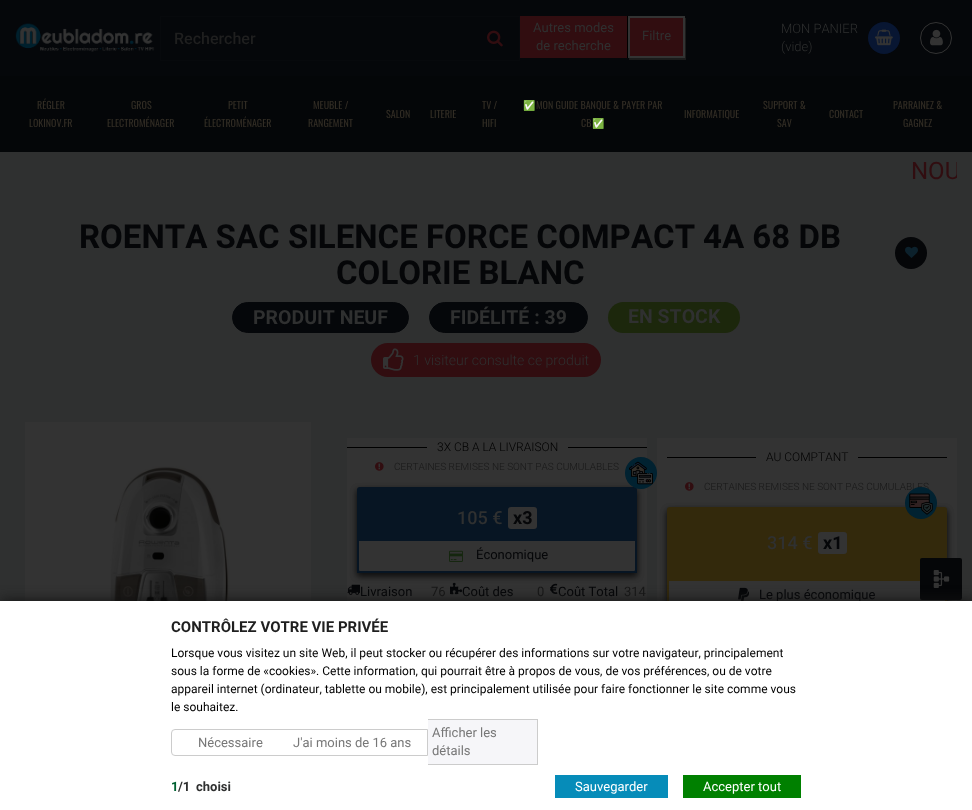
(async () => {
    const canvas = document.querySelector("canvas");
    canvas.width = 972;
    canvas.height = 810;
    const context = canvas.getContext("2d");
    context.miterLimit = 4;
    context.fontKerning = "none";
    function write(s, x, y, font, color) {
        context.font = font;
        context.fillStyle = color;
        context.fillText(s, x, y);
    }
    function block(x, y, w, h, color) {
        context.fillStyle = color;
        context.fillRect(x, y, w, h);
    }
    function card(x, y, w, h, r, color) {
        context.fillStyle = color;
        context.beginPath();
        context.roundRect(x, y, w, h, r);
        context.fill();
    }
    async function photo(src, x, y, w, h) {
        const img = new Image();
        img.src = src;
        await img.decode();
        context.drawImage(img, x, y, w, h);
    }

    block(0, 0, 972, 810, "rgb(47, 48, 48)");
    block(0, 0, 972, 76, "rgb(5, 7, 10)");
    await photo("media/1.png", 15, 23, 140, 29);
    context.strokeStyle = "rgba(51, 51, 51, 0.06)";
    context.strokeRect(160.5, 16.5, 359, 44);
    write("Rechercher", 174, 44, "500 16px Roboto", "rgb(31, 31, 31)");
    await photo("media/2.png", 487, 30, 16, 17);
    block(520, 16, 163, 42, "rgb(49, 13, 16)");
    block(627, 16, 1, 42, "rgb(0, 0, 0)");
    write("Autres modes", 533, 32, "13px Roboto", "rgb(47, 48, 48)");
    write("de recherche", 536, 50, "13px Roboto", "rgb(47, 48, 48)");
    context.fillStyle = "rgb(27, 27, 27)";
    context.beginPath();
    context.moveTo(629, 58);
    context.lineTo(629, 60);
    context.lineTo(686, 60);
    context.lineTo(686, 18);
    context.lineTo(685, 18);
    context.lineTo(685, 58);
    context.closePath();
    context.fill();
    context.strokeStyle = "rgb(51, 51, 51)";
    context.lineWidth = 2;
    context.strokeRect(629, 17, 55, 40);
    write("Filtre", 642, 40, "13px Roboto", "rgb(47, 48, 48)");
    write("MON PANIER", 781, 33, "300 13px Roboto", "rgb(47, 48, 48)");
    write("(vide)", 781, 51, "300 13px Roboto", "rgb(47, 48, 48)");
    context.fillStyle = "rgb(8, 22, 50)";
    context.beginPath();
    context.arc(884, 38, 16, 0, Math.PI * 2);
    context.fill();
    await photo("media/3.png", 875, 29, 18, 17);
    context.beginPath();
    context.arc(936, 38, 15.5, 0, Math.PI * 2);
    context.lineWidth = 1;
    context.stroke();
    await photo("media/4.png", 930, 29, 13, 17);
    block(0, 76, 972, 76, "rgb(4, 6, 8)");
    write("RÉGLER", 37, 109, "10px Oswald", "rgb(49, 44, 36)");
    write("LOKINOV.FR", 29, 127, "10px Oswald", "rgb(49, 44, 36)");
    write("GROS", 131, 109, "10px Oswald", "rgb(49, 44, 36)");
    write("ELECTROMÉNAGER", 107, 127, "10px Oswald", "rgb(49, 44, 36)");
    write("PETIT", 228, 109, "10px Oswald", "rgb(49, 44, 36)");
    write("ÉLECTROMÉNAGER", 204, 127, "10px Oswald", "rgb(49, 44, 36)");
    write("MEUBLE /", 313, 109, "10px Oswald", "rgb(49, 44, 36)");
    write("RANGEMENT", 308, 127, "10px Oswald", "rgb(49, 44, 36)");
    write("SALON", 386, 118, "10px Oswald", "rgb(49, 44, 36)");
    write("LITERIE", 430, 118, "10px Oswald", "rgb(49, 44, 36)");
    write("TV /", 482, 109, "10px Oswald", "rgb(49, 44, 36)");
    write("HIFI", 482, 127, "10px Oswald", "rgb(49, 44, 36)");
    write("✅", 523, 109, "10px Noto Color Emoji", "rgb(49, 44, 36)");
    write("MON GUIDE BANQUE & PAYER PAR", 536, 109, "10px Oswald", "rgb(49, 44, 36)");
    write("CB", 581, 127, "10px Oswald", "rgb(49, 44, 36)");
    write("✅", 592, 127, "10px Noto Color Emoji", "rgb(49, 44, 36)");
    write("INFORMATIQUE", 684, 118, "10px Oswald", "rgb(49, 44, 36)");
    write("SUPPORT &", 763, 109, "10px Oswald", "rgb(49, 44, 36)");
    write("SAV", 777, 127, "10px Oswald", "rgb(49, 44, 36)");
    write("CONTACT", 829, 118, "10px Oswald", "rgb(49, 44, 36)");
    write("PARRAINEZ &", 893, 109, "10px Oswald", "rgb(49, 44, 36)");
    write("GAGNEZ", 903, 127, "10px Oswald", "rgb(49, 44, 36)");
    context.save();
    context.beginPath();
    context.rect(15, 152, 942, 42);
    context.clip();
    write("NOU", 911, 179, "24px Roboto", "rgb(49, 13, 16)");
    context.restore();
    write("ROENTA SAC SILENCE FORCE COMPACT", 79, 248, "bold 33px Roboto", "rgb(5, 6, 8)");
    write("4A 68 DB", 703, 248, "bold 33px Roboto", "rgb(5, 6, 8)");
    write("COLORIE BLANC", 336, 284, "bold 33px Roboto", "rgb(5, 6, 8)");
    context.beginPath();
    context.arc(911, 253, 16, 0, Math.PI * 2);
    context.fill();
    await photo("media/5.png", 905, 246, 13, 12);
    context.fillStyle = "rgb(5, 7, 10)";
    context.beginPath();
    context.roundRect(232.5, 302.5, 176, 30, 15);
    context.fill();
    context.strokeStyle = "rgb(5, 7, 10)";
    context.stroke();
    write("PRODUIT NEUF", 253, 324, "bold 19.5px Roboto", "rgb(47, 48, 48)");
    context.fillStyle = "rgb(5, 7, 10)";
    context.beginPath();
    context.roundRect(429.5, 302.5, 158, 30, 15);
    context.fill();
    context.stroke();
    write("FIDÉLITÉ : 39", 450, 324, "bold 19.5px Roboto", "rgb(47, 48, 48)");
    card(608, 302, 132, 31, 15.5, "rgb(28, 39, 12)");
    write("EN STOCK", 628, 323, "bold 19.5px Roboto", "rgb(47, 48, 48)");
    card(371, 343, 230, 34, 17, "rgb(49, 13, 16)");
    await photo("media/6.png", 383, 348, 21, 23);
    write("1 visiteur consulte ce produit", 413, 365, "300 14px Roboto", "rgb(47, 48, 48)");
    block(25, 422, 286, 179, "rgb(51, 51, 51)");
    await photo("media/7.png", 110, 466, 120, 135);
    block(347, 438, 300, 163, "rgb(51, 51, 51)");
    block(347, 447, 80, 1, "rgb(0, 0, 0)");
    write("3X CB A LA LIVRAISON", 437, 451, "300 12px Roboto", "rgb(0, 0, 0)");
    block(568, 447, 79, 1, "rgb(0, 0, 0)");
    await photo("media/8.png", 375, 462, 9, 9);
    write("CERTAINES REMISES NE SONT PAS CUMULABLES", 394, 470, "300 10px Roboto", "rgb(24, 24, 24)");
    context.fillStyle = "rgba(0, 0, 0, 0.42)";
    context.filter = "blur(3px)";
    context.beginPath();
    context.rect(357, 490, 280, 86);
    context.fill();
    context.filter = "none";
    context.fillStyle = "rgba(0, 0, 0, 0.52)";
    context.filter = "blur(3px)";
    context.beginPath();
    context.rect(357, 490, 280, 86);
    context.fill();
    context.filter = "none";
    context.fillStyle = "rgb(7, 21, 35)";
    context.beginPath();
    context.roundRect(357, 487, 280, 86, [3, 3, 0, 0]);
    context.fill();
    context.fillStyle = "rgb(1, 34, 49)";
    context.beginPath();
    context.arc(641, 473, 16, 0, Math.PI * 2);
    context.fill();
    await photo("media/9.png", 629, 461, 24, 24);
    write("105 €", 457, 524, "500 18px Roboto", "rgb(47, 48, 48)");
    card(508, 507, 29, 22, 3, "rgb(51, 51, 51)");
    write("x3", 513, 524, "bold 18px Roboto", "rgb(5, 6, 8)");
    context.fillStyle = "rgb(51, 51, 51)";
    context.beginPath();
    context.roundRect(358, 540, 278, 32, [0, 0, 2, 2]);
    context.fill();
    context.strokeStyle = "rgb(7, 21, 35)";
    context.lineWidth = 2;
    context.stroke();
    await photo("media/10.png", 449, 550, 14, 12);
    write("Économique", 476, 559, "13px Roboto", "rgb(5, 6, 8)");
    await photo("media/11.png", 347, 584, 13, 11);
    write("Livraison", 360, 596, "13px Roboto", "rgb(5, 6, 8)");
    write("76", 431, 596, "13px Roboto", "rgb(24, 24, 24)");
    await photo("media/12.png", 450, 582, 13, 13);
    write("Coût des", 462, 596, "13px Roboto", "rgb(5, 6, 8)");
    write("0", 537, 596, "13px Roboto", "rgb(24, 24, 24)");
    await photo("media/13.png", 550, 583, 8, 11);
    write("Coût Total", 558, 596, "13px Roboto", "rgb(5, 6, 8)");
    write("314", 624, 596, "13px Roboto", "rgb(24, 24, 24)");
    block(657, 438, 300, 163, "rgb(51, 51, 51)");
    block(667, 457, 89, 1, "rgb(0, 0, 0)");
    write("AU COMPTANT", 766, 461, "300 12px Roboto", "rgb(0, 0, 0)");
    block(858, 457, 89, 1, "rgb(0, 0, 0)");
    await photo("media/8.png", 685, 482, 9, 9);
    write("CERTAINES REMISES NE SONT PAS CUMULABLES", 704, 490, "300 10px Roboto", "rgb(24, 24, 24)");
    context.fillStyle = "rgba(0, 0, 0, 0.42)";
    context.filter = "blur(3px)";
    context.beginPath();
    context.roundRect(667, 510, 280, 104, 3);
    context.fill();
    context.filter = "none";
    context.fillStyle = "rgba(0, 0, 0, 0.52)";
    context.filter = "blur(3px)";
    context.beginPath();
    context.roundRect(667, 510, 280, 104, 3);
    context.fill();
    context.filter = "none";
    card(667, 507, 280, 104, 3, "rgb(51, 41, 12)");
    context.fillStyle = "rgb(1, 34, 49)";
    context.beginPath();
    context.arc(921, 503, 16, 0, Math.PI * 2);
    context.fill();
    await photo("media/14.png", 909, 493, 24, 22);
    write("314 €", 767, 549, "500 18px Roboto", "rgb(47, 48, 48)");
    card(818, 532, 29, 22, 3, "rgb(51, 51, 51)");
    write("x1", 823, 549, "bold 18px Roboto", "rgb(5, 6, 8)");
    block(669, 581, 276, 20, "rgb(51, 51, 51)");
    context.strokeStyle = "rgb(51, 41, 12)";
    context.strokeRect(668, 580, 278, 30);
    await photo("media/15.png", 738, 587, 11, 14);
    write("Le plus économique", 759, 599, "13px Roboto", "rgb(5, 6, 8)");
    card(920, 558, 42, 42, 2, "rgb(5, 6, 8)");
    await photo("media/16.png", 933, 570, 17, 18);
    context.fillStyle = "rgb(18, 18, 18)";
    context.filter = "blur(7px)";
    context.beginPath();
    context.rect(0, 601, 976, 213);
    context.fill();
    context.filter = "none";
    block(0, 601, 972, 209, "rgb(255, 255, 255)");
    write("CONTRÔLEZ VOTRE VIE PRIVÉE", 171, 632, "bold 15px Roboto", "rgb(31, 31, 31)");
    write("Lorsque vous visitez un site Web, il peut stocker ou récupérer des informations sur votre navigateur, principalement", 171, 657, "12px Roboto", "rgb(0, 0, 0)");
    write("sous la forme de «cookies». Cette information, qui pourrait être à propos de vous, de vos préférences, ou de votre", 171, 675, "12px Roboto", "rgb(0, 0, 0)");
    write("appareil internet (ordinateur, tablette ou mobile), est principalement utilisée pour faire fonctionner le site comme vous", 171, 693, "12px Roboto", "rgb(0, 0, 0)");
    write("le souhaitez.", 171, 711, "12px Roboto", "rgb(0, 0, 0)");
    context.beginPath();
    context.roundRect(171.5, 729.5, 256, 26, [3.5, 0, 0, 3.5]);
    context.strokeStyle = "rgb(204, 204, 204)";
    context.lineWidth = 1;
    context.stroke();
    write("Nécessaire", 198, 747, "13px Roboto", "rgb(119, 119, 119)");
    write("J'ai moins de 16 ans", 293, 747, "13px Roboto", "rgb(119, 119, 119)");
    block(428, 720, 109, 44, "rgb(246, 246, 249)");
    block(428, 719, 110, 1, "rgb(204, 204, 204)");
    block(537, 719, 1, 46, "rgb(204, 204, 204)");
    block(428, 764, 110, 1, "rgb(204, 204, 204)");
    write("Afficher les", 432, 737, "13px Roboto", "rgb(119, 119, 119)");
    write("détails", 432, 755, "13px Roboto", "rgb(119, 119, 119)");
    write("1", 171, 791, "bold 13px Roboto", "rgb(0, 97, 49)");
    write("/1", 178, 791, "bold 13px Roboto", "rgb(47, 48, 48)");
    write("choisi", 196, 791, "bold 13px Roboto", "rgb(47, 48, 48)");
    block(555, 775, 113, 23, "rgb(6, 140, 185)");
    write("Sauvegarder", 575, 791, "13px Roboto", "rgb(255, 255, 255)");
    block(683, 775, 118, 23, "rgb(0, 128, 0)");
    write("Accepter tout", 703, 791, "13px Roboto", "rgb(255, 255, 255)");
})();
